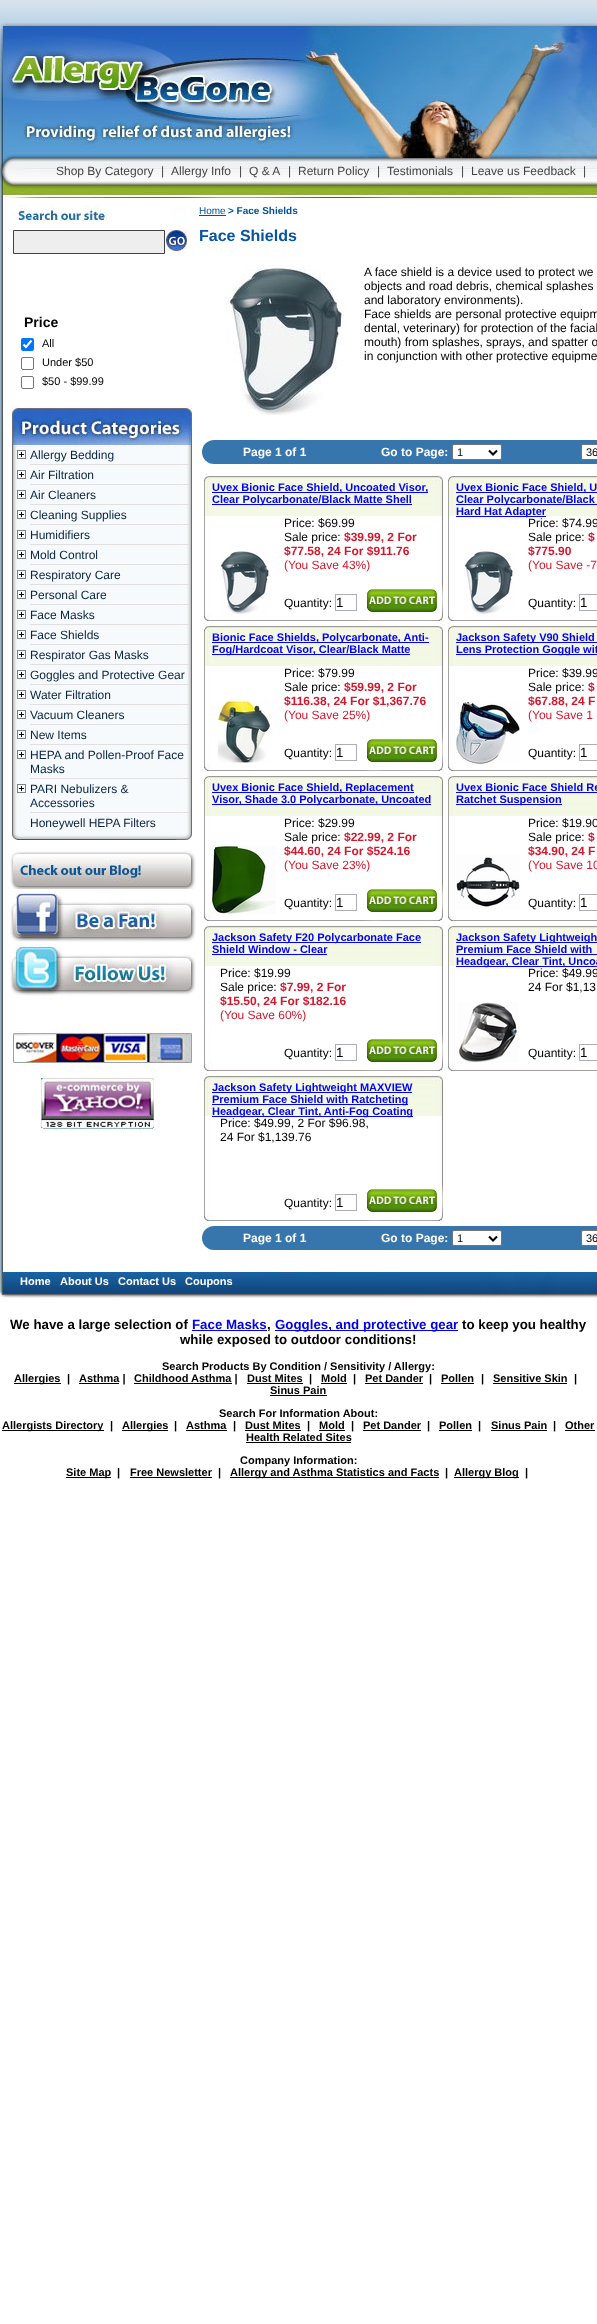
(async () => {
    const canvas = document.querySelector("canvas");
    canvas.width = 597;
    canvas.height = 2324;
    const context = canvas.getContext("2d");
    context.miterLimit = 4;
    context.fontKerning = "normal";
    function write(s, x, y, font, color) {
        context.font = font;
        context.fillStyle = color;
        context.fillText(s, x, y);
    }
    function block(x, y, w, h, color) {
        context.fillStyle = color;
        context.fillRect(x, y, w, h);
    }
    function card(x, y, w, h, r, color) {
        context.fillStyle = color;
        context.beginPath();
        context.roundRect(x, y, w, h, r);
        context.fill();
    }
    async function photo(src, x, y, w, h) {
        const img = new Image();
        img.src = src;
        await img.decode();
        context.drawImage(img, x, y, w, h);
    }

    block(0, 0, 597, 2324, "rgb(255, 255, 255)");
    await photo("media/1.png", 0, 0, 597, 22);
    await photo("media/2.png", 0, 198, 597, 1072);
    await photo("media/3.png", 0, 22, 597, 176);
    write("Shop By Category", 56, 175, "12px Liberation Sans", "rgb(68, 68, 68)");
    write("|", 161, 175, "12px Liberation Sans", "rgb(68, 68, 68)");
    write("Allergy Info", 171, 175, "12px Liberation Sans", "rgb(68, 68, 68)");
    write("|", 239, 175, "12px Liberation Sans", "rgb(68, 68, 68)");
    write("Q & A", 249, 175, "12px Liberation Sans", "rgb(68, 68, 68)");
    write("|", 288, 175, "12px Liberation Sans", "rgb(68, 68, 68)");
    write("Return Policy", 298, 175, "12px Liberation Sans", "rgb(68, 68, 68)");
    write("|", 377, 175, "12px Liberation Sans", "rgb(68, 68, 68)");
    write("Testimonials", 387, 175, "12px Liberation Sans", "rgb(68, 68, 68)");
    write("|", 461, 175, "12px Liberation Sans", "rgb(68, 68, 68)");
    write("Leave us Feedback", 471, 175, "12px Liberation Sans", "rgb(68, 68, 68)");
    write("|", 583, 175, "12px Liberation Sans", "rgb(68, 68, 68)");
    await photo("media/4.png", 11, 205, 176, 48);
    context.fillStyle = "rgb(238, 238, 238)";
    context.beginPath();
    context.rect(13.5, 230.5, 151, 23);
    context.fill();
    context.strokeStyle = "rgb(68, 68, 68)";
    context.stroke();
    write("Price", 24, 327, "bold 14px Liberation Sans", "rgb(0, 0, 0)");
    card(21, 338, 13, 13, 2, "rgb(0, 117, 255)");
    context.beginPath();
    context.moveTo(23.5, 344.5);
    context.lineTo(26, 347);
    context.lineTo(31.5, 340.5);
    context.strokeStyle = "rgb(255, 255, 255)";
    context.lineWidth = 2.1;
    context.stroke();
    write("All", 42, 347, "11px Liberation Sans", "rgb(0, 0, 0)");
    context.beginPath();
    context.roundRect(21.5, 357.5, 12, 12, 1.5);
    context.strokeStyle = "rgb(118, 118, 118)";
    context.lineWidth = 1;
    context.stroke();
    write("Under $50", 42, 366, "11px Liberation Sans", "rgb(0, 0, 0)");
    context.beginPath();
    context.roundRect(21.5, 376.5, 12, 12, 1.5);
    context.stroke();
    write("$50 - $99.99", 42, 385, "11px Liberation Sans", "rgb(0, 0, 0)");
    await photo("media/5.png", 11, 405, 181, 40);
    await photo("media/6.png", 12, 445, 180, 388);
    block(30, 464, 159, 1, "rgb(225, 223, 224)");
    await photo("media/7.png", 17, 450, 9, 9);
    write("Allergy Bedding", 30, 459, "12px Liberation Sans", "rgb(7, 34, 64)");
    block(30, 484, 159, 1, "rgb(225, 223, 224)");
    await photo("media/7.png", 17, 470, 9, 9);
    write("Air Filtration", 30, 479, "12px Liberation Sans", "rgb(7, 34, 64)");
    block(30, 504, 159, 1, "rgb(225, 223, 224)");
    await photo("media/7.png", 17, 490, 9, 9);
    write("Air Cleaners", 30, 499, "12px Liberation Sans", "rgb(7, 34, 64)");
    block(30, 524, 159, 1, "rgb(225, 223, 224)");
    await photo("media/7.png", 17, 510, 9, 9);
    write("Cleaning Supplies", 30, 519, "12px Liberation Sans", "rgb(7, 34, 64)");
    block(30, 544, 159, 1, "rgb(225, 223, 224)");
    await photo("media/7.png", 17, 530, 9, 9);
    write("Humidifiers", 30, 539, "12px Liberation Sans", "rgb(7, 34, 64)");
    block(30, 564, 159, 1, "rgb(225, 223, 224)");
    await photo("media/7.png", 17, 550, 9, 9);
    write("Mold Control", 30, 559, "12px Liberation Sans", "rgb(7, 34, 64)");
    block(30, 584, 159, 1, "rgb(225, 223, 224)");
    await photo("media/7.png", 17, 570, 9, 9);
    write("Respiratory Care", 30, 579, "12px Liberation Sans", "rgb(7, 34, 64)");
    block(30, 604, 159, 1, "rgb(225, 223, 224)");
    await photo("media/7.png", 17, 590, 9, 9);
    write("Personal Care", 30, 599, "12px Liberation Sans", "rgb(7, 34, 64)");
    block(30, 624, 159, 1, "rgb(225, 223, 224)");
    await photo("media/7.png", 17, 610, 9, 9);
    write("Face Masks", 30, 619, "12px Liberation Sans", "rgb(7, 34, 64)");
    block(30, 644, 159, 1, "rgb(225, 223, 224)");
    await photo("media/7.png", 17, 630, 9, 9);
    write("Face Shields", 30, 639, "12px Liberation Sans", "rgb(7, 34, 64)");
    block(30, 664, 159, 1, "rgb(225, 223, 224)");
    await photo("media/7.png", 17, 650, 9, 9);
    write("Respirator Gas Masks", 30, 659, "12px Liberation Sans", "rgb(7, 34, 64)");
    block(30, 684, 159, 1, "rgb(225, 223, 224)");
    await photo("media/7.png", 17, 670, 9, 9);
    write("Goggles and Protective Gear", 30, 679, "12px Liberation Sans", "rgb(7, 34, 64)");
    block(30, 704, 159, 1, "rgb(225, 223, 224)");
    await photo("media/7.png", 17, 690, 9, 9);
    write("Water Filtration", 30, 699, "12px Liberation Sans", "rgb(7, 34, 64)");
    block(30, 724, 159, 1, "rgb(225, 223, 224)");
    await photo("media/7.png", 17, 710, 9, 9);
    write("Vacuum Cleaners", 30, 719, "12px Liberation Sans", "rgb(7, 34, 64)");
    block(30, 744, 159, 1, "rgb(225, 223, 224)");
    await photo("media/7.png", 17, 730, 9, 9);
    write("New Items", 30, 739, "12px Liberation Sans", "rgb(7, 34, 64)");
    block(30, 778, 159, 1, "rgb(225, 223, 224)");
    await photo("media/7.png", 17, 750, 9, 9);
    write("HEPA and Pollen-Proof Face", 30, 759, "12px Liberation Sans", "rgb(7, 34, 64)");
    write("Masks", 30, 773, "12px Liberation Sans", "rgb(7, 34, 64)");
    block(30, 812, 159, 1, "rgb(225, 223, 224)");
    await photo("media/7.png", 17, 784, 9, 9);
    write("PARI Nebulizers &", 30, 793, "12px Liberation Sans", "rgb(7, 34, 64)");
    write("Accessories", 30, 807, "12px Liberation Sans", "rgb(7, 34, 64)");
    write("Honeywell HEPA Filters", 30, 827, "12px Liberation Sans", "rgb(7, 34, 64)");
    await photo("media/8.png", 12, 833, 180, 7);
    await photo("media/9.png", 8, 850, 189, 39);
    await photo("media/10.png", 10, 891, 186, 51);
    await photo("media/11.png", 9, 945, 187, 51);
    await photo("media/12.png", 8, 1028, 184, 104);
    write("Home", 199, 214, "10px Liberation Sans", "rgb(3, 81, 153)");
    block(199, 215, 27, 1, "rgb(3, 81, 153)");
    write("> Face Shields", 228, 214, "bold 10px Liberation Sans", "rgb(3, 81, 153)");
    write("Face Shields", 199, 241, "bold 16px Liberation Sans", "rgb(5, 83, 165)");
    await photo("media/13.png", 225, 265, 120, 150);
    write("A face shield is a device used to protect we", 364, 276, "12px Liberation Sans", "rgb(0, 0, 0)");
    write("objects and road debris, chemical splashes", 364, 290, "12px Liberation Sans", "rgb(0, 0, 0)");
    write("and laboratory environments).", 364, 304, "12px Liberation Sans", "rgb(0, 0, 0)");
    write("Face shields are personal protective equipm", 364, 318, "12px Liberation Sans", "rgb(0, 0, 0)");
    write("dental, veterinary) for protection of the facial", 364, 332, "12px Liberation Sans", "rgb(0, 0, 0)");
    write("mouth) from splashes, sprays, and spatter o", 364, 346, "12px Liberation Sans", "rgb(0, 0, 0)");
    write("in conjunction with other protective equipme", 364, 360, "12px Liberation Sans", "rgb(0, 0, 0)");
    card(202, 440, 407, 24, 12, "rgb(55, 118, 173)");
    write("Page 1 of 1", 243, 456, "bold 12px Liberation Sans", "rgb(255, 255, 255)");
    write("Go to Page:", 381, 456, "bold 12px Liberation Sans", "rgb(255, 255, 255)");
    context.beginPath();
    context.roundRect(452.5, 444.5, 49, 15, 1.5);
    context.fill();
    context.stroke();
    context.beginPath();
    context.moveTo(489, 450.5);
    context.lineTo(493, 454.5);
    context.lineTo(497, 450.5);
    context.strokeStyle = "rgb(0, 0, 0)";
    context.lineWidth = 2;
    context.stroke();
    write("1", 457, 456, "11px Liberation Sans", "rgb(0, 0, 0)");
    context.fillStyle = "rgb(255, 255, 255)";
    context.beginPath();
    context.roundRect(581.5, 444.5, 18, 15, 1.5);
    context.fill();
    context.strokeStyle = "rgb(118, 118, 118)";
    context.lineWidth = 1;
    context.stroke();
    write("36", 586, 456, "11px Liberation Sans", "rgb(0, 0, 0)");
    await photo("media/14.png", 204, 476, 239, 145);
    block(212, 492, 216, 1, "rgb(0, 0, 255)");
    write("Uvex Bionic Face Shield, Uncoated Visor,", 212, 491, "bold 11px Liberation Sans", "rgb(0, 0, 255)");
    block(212, 504, 200, 1, "rgb(0, 0, 255)");
    write("Clear Polycarbonate/Black Matte Shell", 212, 503, "bold 11px Liberation Sans", "rgb(0, 0, 255)");
    write("Price: $69.99", 284, 527, "12px Liberation Sans", "rgb(0, 0, 0)");
    write("Sale price:", 284, 541, "12px Liberation Sans", "rgb(0, 0, 0)");
    write("$39.99, 2 For", 344, 541, "bold 12px Liberation Sans", "rgb(211, 24, 46)");
    write("$77.58, 24 For $911.76", 284, 555, "bold 12px Liberation Sans", "rgb(211, 24, 46)");
    write("(You Save 43%)", 284, 569, "12px Liberation Sans", "rgb(211, 24, 46)");
    await photo("media/15.png", 220, 551, 49, 63);
    write("Quantity:", 284, 607, "12px Liberation Sans", "rgb(0, 0, 0)");
    context.strokeStyle = "rgb(171, 173, 179)";
    context.strokeRect(335.5, 594.5, 21, 16);
    write("1", 336, 607, "13.3px Liberation Sans", "rgb(0, 0, 0)");
    await photo("media/16.png", 367, 589, 70, 23);
    await photo("media/17.png", 448, 476, 149, 145);
    block(456, 492, 141, 1, "rgb(0, 0, 255)");
    write("Uvex Bionic Face Shield, U", 456, 491, "bold 11px Liberation Sans", "rgb(0, 0, 255)");
    block(456, 504, 141, 1, "rgb(0, 0, 255)");
    write("Clear Polycarbonate/Black", 456, 503, "bold 11px Liberation Sans", "rgb(0, 0, 255)");
    block(456, 516, 90, 1, "rgb(0, 0, 255)");
    write("Hard Hat Adapter", 456, 515, "bold 11px Liberation Sans", "rgb(0, 0, 255)");
    write("Price: $74.99", 528, 527, "12px Liberation Sans", "rgb(0, 0, 0)");
    write("Sale price:", 528, 541, "12px Liberation Sans", "rgb(0, 0, 0)");
    write("$", 588, 541, "bold 12px Liberation Sans", "rgb(211, 24, 46)");
    write("$775.90", 528, 555, "bold 12px Liberation Sans", "rgb(211, 24, 46)");
    write("(You Save -7", 528, 569, "12px Liberation Sans", "rgb(211, 24, 46)");
    await photo("media/15.png", 464, 551, 49, 63);
    write("Quantity:", 528, 607, "12px Liberation Sans", "rgb(0, 0, 0)");
    context.strokeRect(579.5, 594.5, 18, 16);
    write("1", 580, 607, "13.3px Liberation Sans", "rgb(0, 0, 0)");
    await photo("media/14.png", 204, 626, 239, 145);
    block(212, 642, 217, 1, "rgb(0, 0, 255)");
    write("Bionic Face Shields, Polycarbonate, Anti-", 212, 641, "bold 11px Liberation Sans", "rgb(0, 0, 255)");
    block(212, 654, 198, 1, "rgb(0, 0, 255)");
    write("Fog/Hardcoat Visor, Clear/Black Matte", 212, 653, "bold 11px Liberation Sans", "rgb(0, 0, 255)");
    await photo("media/18.png", 217, 699, 53, 64);
    write("Price: $79.99", 284, 677, "12px Liberation Sans", "rgb(0, 0, 0)");
    write("Sale price:", 284, 691, "12px Liberation Sans", "rgb(0, 0, 0)");
    write("$59.99, 2 For", 344, 691, "bold 12px Liberation Sans", "rgb(211, 24, 46)");
    write("$116.38, 24 For $1,367.76", 284, 705, "bold 12px Liberation Sans", "rgb(211, 24, 46)");
    write("(You Save 25%)", 284, 719, "12px Liberation Sans", "rgb(211, 24, 46)");
    write("Quantity:", 284, 757, "12px Liberation Sans", "rgb(0, 0, 0)");
    context.strokeRect(335.5, 744.5, 21, 16);
    write("1", 336, 757, "13.3px Liberation Sans", "rgb(0, 0, 0)");
    await photo("media/16.png", 367, 739, 70, 23);
    await photo("media/17.png", 448, 626, 149, 145);
    block(456, 642, 141, 1, "rgb(0, 0, 255)");
    write("Jackson Safety V90 Shield", 456, 641, "bold 11px Liberation Sans", "rgb(0, 0, 255)");
    block(456, 654, 141, 1, "rgb(0, 0, 255)");
    write("Lens Protection Goggle wit", 456, 653, "bold 11px Liberation Sans", "rgb(0, 0, 255)");
    write("Price: $39.99", 528, 677, "12px Liberation Sans", "rgb(0, 0, 0)");
    write("Sale price:", 528, 691, "12px Liberation Sans", "rgb(0, 0, 0)");
    write("$", 588, 691, "bold 12px Liberation Sans", "rgb(211, 24, 46)");
    write("$67.88, 24 F", 528, 705, "bold 12px Liberation Sans", "rgb(211, 24, 46)");
    write("(You Save 1", 528, 719, "12px Liberation Sans", "rgb(211, 24, 46)");
    await photo("media/19.png", 456, 702, 64, 62);
    write("Quantity:", 528, 757, "12px Liberation Sans", "rgb(0, 0, 0)");
    context.strokeRect(579.5, 744.5, 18, 16);
    write("1", 580, 757, "13.3px Liberation Sans", "rgb(0, 0, 0)");
    await photo("media/14.png", 204, 776, 239, 145);
    block(212, 792, 202, 1, "rgb(0, 0, 255)");
    write("Uvex Bionic Face Shield, Replacement", 212, 791, "bold 11px Liberation Sans", "rgb(0, 0, 255)");
    block(212, 804, 219, 1, "rgb(0, 0, 255)");
    write("Visor, Shade 3.0 Polycarbonate, Uncoated", 212, 803, "bold 11px Liberation Sans", "rgb(0, 0, 255)");
    await photo("media/20.png", 212, 845, 64, 69);
    write("Price: $29.99", 284, 827, "12px Liberation Sans", "rgb(0, 0, 0)");
    write("Sale price:", 284, 841, "12px Liberation Sans", "rgb(0, 0, 0)");
    write("$22.99, 2 For", 344, 841, "bold 12px Liberation Sans", "rgb(211, 24, 46)");
    write("$44.60, 24 For $524.16", 284, 855, "bold 12px Liberation Sans", "rgb(211, 24, 46)");
    write("(You Save 23%)", 284, 869, "12px Liberation Sans", "rgb(211, 24, 46)");
    write("Quantity:", 284, 907, "12px Liberation Sans", "rgb(0, 0, 0)");
    context.strokeRect(335.5, 894.5, 21, 16);
    write("1", 336, 907, "13.3px Liberation Sans", "rgb(0, 0, 0)");
    await photo("media/16.png", 367, 889, 70, 23);
    await photo("media/17.png", 448, 776, 149, 145);
    write("Uvex Bionic Face Shield Re", 456, 791, "bold 11px Liberation Sans", "rgb(0, 0, 255)");
    block(456, 792, 141, 1, "rgb(0, 0, 255)");
    block(456, 804, 106, 1, "rgb(0, 0, 255)");
    write("Ratchet Suspension", 456, 803, "bold 11px Liberation Sans", "rgb(0, 0, 255)");
    write("Price: $19.90", 528, 827, "12px Liberation Sans", "rgb(0, 0, 0)");
    write("Sale price:", 528, 841, "12px Liberation Sans", "rgb(0, 0, 0)");
    write("$", 588, 841, "bold 12px Liberation Sans", "rgb(211, 24, 46)");
    write("$34.90, 24 F", 528, 855, "bold 12px Liberation Sans", "rgb(211, 24, 46)");
    write("(You Save 10", 528, 869, "12px Liberation Sans", "rgb(211, 24, 46)");
    await photo("media/21.png", 456, 855, 64, 54);
    write("Quantity:", 528, 907, "12px Liberation Sans", "rgb(0, 0, 0)");
    context.strokeRect(579.5, 894.5, 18, 16);
    write("1", 580, 907, "13.3px Liberation Sans", "rgb(0, 0, 0)");
    await photo("media/14.png", 204, 926, 239, 145);
    block(212, 942, 209, 1, "rgb(0, 0, 255)");
    write("Jackson Safety F20 Polycarbonate Face", 212, 941, "bold 11px Liberation Sans", "rgb(0, 0, 255)");
    write("Shield Window - Clear", 212, 953, "bold 11px Liberation Sans", "rgb(0, 0, 255)");
    block(212, 954, 115, 1, "rgb(0, 0, 255)");
    write("Price: $19.99", 220, 977, "12px Liberation Sans", "rgb(0, 0, 0)");
    write("Sale price:", 220, 991, "12px Liberation Sans", "rgb(0, 0, 0)");
    write("$7.99, 2 For", 280, 991, "bold 12px Liberation Sans", "rgb(211, 24, 46)");
    write("$15.50, 24 For $182.16", 220, 1005, "bold 12px Liberation Sans", "rgb(211, 24, 46)");
    write("(You Save 60%)", 220, 1019, "12px Liberation Sans", "rgb(211, 24, 46)");
    write("Quantity:", 284, 1057, "12px Liberation Sans", "rgb(0, 0, 0)");
    context.strokeRect(335.5, 1044.5, 21, 16);
    write("1", 336, 1057, "13.3px Liberation Sans", "rgb(0, 0, 0)");
    await photo("media/16.png", 367, 1039, 70, 23);
    await photo("media/17.png", 448, 926, 149, 145);
    block(456, 942, 141, 1, "rgb(0, 0, 255)");
    write("Jackson Safety Lightweigh", 456, 941, "bold 11px Liberation Sans", "rgb(0, 0, 255)");
    write("Premium Face Shield with", 456, 953, "bold 11px Liberation Sans", "rgb(0, 0, 255)");
    block(456, 954, 141, 1, "rgb(0, 0, 255)");
    block(456, 966, 141, 1, "rgb(0, 0, 255)");
    write("Headgear, Clear Tint, Uncoa", 456, 965, "bold 11px Liberation Sans", "rgb(0, 0, 255)");
    write("Price: $49.99", 528, 977, "12px Liberation Sans", "rgb(0, 0, 0)");
    write("24 For $1,13", 528, 991, "12px Liberation Sans", "rgb(0, 0, 0)");
    await photo("media/22.png", 457, 1002, 62, 61);
    write("Quantity:", 528, 1057, "12px Liberation Sans", "rgb(0, 0, 0)");
    context.strokeRect(579.5, 1044.5, 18, 16);
    write("1", 580, 1057, "13.3px Liberation Sans", "rgb(0, 0, 0)");
    await photo("media/14.png", 204, 1076, 239, 145);
    block(212, 1092, 200, 1, "rgb(0, 0, 255)");
    write("Jackson Safety Lightweight MAXVIEW", 212, 1091, "bold 11px Liberation Sans", "rgb(0, 0, 255)");
    block(212, 1104, 196, 1, "rgb(0, 0, 255)");
    write("Premium Face Shield with Ratcheting", 212, 1103, "bold 11px Liberation Sans", "rgb(0, 0, 255)");
    block(212, 1116, 201, 1, "rgb(0, 0, 255)");
    write("Headgear, Clear Tint, Anti-Fog Coating", 212, 1115, "bold 11px Liberation Sans", "rgb(0, 0, 255)");
    write("Price: $49.99, 2 For $96.98,", 220, 1127, "12px Liberation Sans", "rgb(0, 0, 0)");
    write("24 For $1,139.76", 220, 1141, "12px Liberation Sans", "rgb(0, 0, 0)");
    write("Quantity:", 284, 1207, "12px Liberation Sans", "rgb(0, 0, 0)");
    context.strokeRect(335.5, 1194.5, 21, 16);
    write("1", 336, 1207, "13.3px Liberation Sans", "rgb(0, 0, 0)");
    await photo("media/16.png", 367, 1189, 70, 23);
    card(202, 1226, 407, 24, 12, "rgb(55, 118, 173)");
    write("Page 1 of 1", 243, 1242, "bold 12px Liberation Sans", "rgb(255, 255, 255)");
    write("Go to Page:", 381, 1242, "bold 12px Liberation Sans", "rgb(255, 255, 255)");
    context.beginPath();
    context.roundRect(452.5, 1230.5, 49, 15, 1.5);
    context.fill();
    context.strokeStyle = "rgb(118, 118, 118)";
    context.stroke();
    context.beginPath();
    context.moveTo(489, 1236.5);
    context.lineTo(493, 1240.5);
    context.lineTo(497, 1236.5);
    context.strokeStyle = "rgb(0, 0, 0)";
    context.lineWidth = 2;
    context.stroke();
    write("1", 457, 1242, "11px Liberation Sans", "rgb(0, 0, 0)");
    context.fillStyle = "rgb(255, 255, 255)";
    context.beginPath();
    context.roundRect(581.5, 1230.5, 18, 15, 1.5);
    context.fill();
    context.strokeStyle = "rgb(118, 118, 118)";
    context.lineWidth = 1;
    context.stroke();
    write("36", 586, 1242, "11px Liberation Sans", "rgb(0, 0, 0)");
    await photo("media/23.png", 0, 1270, 597, 33);
    write("Home", 20, 1285, "bold 11px Liberation Sans", "rgb(255, 255, 255)");
    write("About Us", 60, 1285, "bold 11px Liberation Sans", "rgb(255, 255, 255)");
    write("Contact Us", 118, 1285, "bold 11px Liberation Sans", "rgb(255, 255, 255)");
    write("Coupons", 185, 1285, "bold 11px Liberation Sans", "rgb(255, 255, 255)");
    write("We have a large selection of", 10, 1329, "bold 13.3px Liberation Sans", "rgb(0, 0, 0)");
    write("Face Masks", 192, 1329, "bold 13.3px Liberation Sans", "rgb(0, 0, 238)");
    write(",", 267, 1329, "bold 13.3px Liberation Sans", "rgb(0, 0, 0)");
    block(192, 1330, 75, 1, "rgb(0, 0, 238)");
    block(275, 1330, 183, 1, "rgb(0, 0, 238)");
    write("Goggles, and protective gear", 275, 1329, "bold 13.3px Liberation Sans", "rgb(0, 0, 238)");
    write("to keep you healthy", 462, 1329, "bold 13.3px Liberation Sans", "rgb(0, 0, 0)");
    write("while exposed to outdoor conditions!", 180, 1344, "bold 13.3px Liberation Sans", "rgb(0, 0, 0)");
    write("Search Products By Condition / Sensitivity / Allergy:", 162, 1370, "bold 11px Liberation Sans", "rgb(0, 0, 0)");
    block(14, 1383, 47, 1, "rgb(0, 0, 0)");
    write("Allergies", 14, 1382, "bold 11px Liberation Sans", "rgb(0, 0, 0)");
    write("|", 67, 1382, "bold 11px Liberation Sans", "rgb(0, 0, 0)");
    block(79, 1383, 40, 1, "rgb(0, 0, 0)");
    write("Asthma |", 79, 1382, "bold 11px Liberation Sans", "rgb(0, 0, 0)");
    block(134, 1383, 98, 1, "rgb(0, 0, 0)");
    write("Childhood Asthma |", 134, 1382, "bold 11px Liberation Sans", "rgb(0, 0, 0)");
    write("Dust Mites", 247, 1382, "bold 11px Liberation Sans", "rgb(0, 0, 0)");
    block(247, 1383, 56, 1, "rgb(0, 0, 0)");
    write("|", 309, 1382, "bold 11px Liberation Sans", "rgb(0, 0, 0)");
    write("Mold", 321, 1382, "bold 11px Liberation Sans", "rgb(0, 0, 0)");
    block(321, 1383, 26, 1, "rgb(0, 0, 0)");
    write("|", 353, 1382, "bold 11px Liberation Sans", "rgb(0, 0, 0)");
    write("Pet Dander", 365, 1382, "bold 11px Liberation Sans", "rgb(0, 0, 0)");
    block(365, 1383, 58, 1, "rgb(0, 0, 0)");
    write("|", 429, 1382, "bold 11px Liberation Sans", "rgb(0, 0, 0)");
    write("Pollen", 441, 1382, "bold 11px Liberation Sans", "rgb(0, 0, 0)");
    block(441, 1383, 33, 1, "rgb(0, 0, 0)");
    write("|", 481, 1382, "bold 11px Liberation Sans", "rgb(0, 0, 0)");
    write("Sensitive Skin", 493, 1382, "bold 11px Liberation Sans", "rgb(0, 0, 0)");
    block(493, 1383, 74, 1, "rgb(0, 0, 0)");
    write("|", 574, 1382, "bold 11px Liberation Sans", "rgb(0, 0, 0)");
    write("Sinus Pain", 270, 1394, "bold 11px Liberation Sans", "rgb(0, 0, 0)");
    block(270, 1395, 57, 1, "rgb(0, 0, 0)");
    write("Search For Information About:", 219, 1417, "bold 11px Liberation Sans", "rgb(0, 0, 0)");
    block(2, 1430, 102, 1, "rgb(0, 0, 0)");
    write("Allergists Directory", 2, 1429, "bold 11px Liberation Sans", "rgb(0, 0, 0)");
    write("|", 110, 1429, "bold 11px Liberation Sans", "rgb(0, 0, 0)");
    block(122, 1430, 46, 1, "rgb(0, 0, 0)");
    write("Allergies", 122, 1429, "bold 11px Liberation Sans", "rgb(0, 0, 0)");
    write("|", 174, 1429, "bold 11px Liberation Sans", "rgb(0, 0, 0)");
    write("Asthma", 186, 1429, "bold 11px Liberation Sans", "rgb(0, 0, 0)");
    block(186, 1430, 41, 1, "rgb(0, 0, 0)");
    write("|", 233, 1429, "bold 11px Liberation Sans", "rgb(0, 0, 0)");
    write("Dust Mites", 245, 1429, "bold 11px Liberation Sans", "rgb(0, 0, 0)");
    block(245, 1430, 56, 1, "rgb(0, 0, 0)");
    write("|", 307, 1429, "bold 11px Liberation Sans", "rgb(0, 0, 0)");
    write("Mold", 319, 1429, "bold 11px Liberation Sans", "rgb(0, 0, 0)");
    block(319, 1430, 26, 1, "rgb(0, 0, 0)");
    write("|", 351, 1429, "bold 11px Liberation Sans", "rgb(0, 0, 0)");
    write("Pet Dander", 363, 1429, "bold 11px Liberation Sans", "rgb(0, 0, 0)");
    block(363, 1430, 58, 1, "rgb(0, 0, 0)");
    write("|", 427, 1429, "bold 11px Liberation Sans", "rgb(0, 0, 0)");
    write("Pollen", 439, 1429, "bold 11px Liberation Sans", "rgb(0, 0, 0)");
    block(439, 1430, 33, 1, "rgb(0, 0, 0)");
    write("|", 478, 1429, "bold 11px Liberation Sans", "rgb(0, 0, 0)");
    write("Sinus Pain", 491, 1429, "bold 11px Liberation Sans", "rgb(0, 0, 0)");
    block(491, 1430, 56, 1, "rgb(0, 0, 0)");
    write("|", 553, 1429, "bold 11px Liberation Sans", "rgb(0, 0, 0)");
    write("Other", 565, 1429, "bold 11px Liberation Sans", "rgb(0, 0, 0)");
    block(565, 1430, 30, 1, "rgb(0, 0, 0)");
    write("Health Related Sites", 246, 1441, "bold 11px Liberation Sans", "rgb(0, 0, 0)");
    block(246, 1442, 105, 1, "rgb(0, 0, 0)");
    write("Company Information:", 240, 1464, "bold 11px Liberation Sans", "rgb(0, 0, 0)");
    block(66, 1477, 45, 1, "rgb(0, 0, 0)");
    write("Site Map", 66, 1476, "bold 11px Liberation Sans", "rgb(0, 0, 0)");
    write("|", 117, 1476, "bold 11px Liberation Sans", "rgb(0, 0, 0)");
    write("Free Newsletter", 130, 1476, "bold 11px Liberation Sans", "rgb(0, 0, 0)");
    block(130, 1477, 82, 1, "rgb(0, 0, 0)");
    write("|", 218, 1476, "bold 11px Liberation Sans", "rgb(0, 0, 0)");
    block(230, 1477, 209, 1, "rgb(0, 0, 0)");
    write("Allergy and Asthma Statistics and Facts", 230, 1476, "bold 11px Liberation Sans", "rgb(0, 0, 0)");
    write("|", 445, 1476, "bold 11px Liberation Sans", "rgb(0, 0, 0)");
    block(454, 1477, 65, 1, "rgb(0, 0, 0)");
    write("Allergy Blog", 454, 1476, "bold 11px Liberation Sans", "rgb(0, 0, 0)");
    write("|", 525, 1476, "bold 11px Liberation Sans", "rgb(0, 0, 0)");
})();
